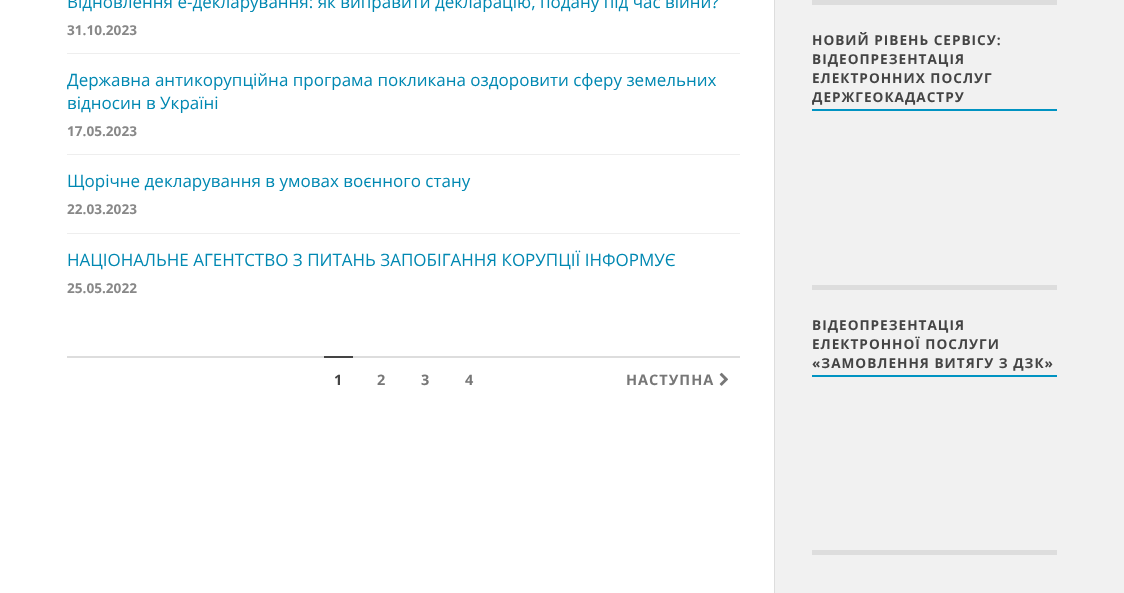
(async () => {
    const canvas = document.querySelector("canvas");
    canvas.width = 1124;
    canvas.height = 593;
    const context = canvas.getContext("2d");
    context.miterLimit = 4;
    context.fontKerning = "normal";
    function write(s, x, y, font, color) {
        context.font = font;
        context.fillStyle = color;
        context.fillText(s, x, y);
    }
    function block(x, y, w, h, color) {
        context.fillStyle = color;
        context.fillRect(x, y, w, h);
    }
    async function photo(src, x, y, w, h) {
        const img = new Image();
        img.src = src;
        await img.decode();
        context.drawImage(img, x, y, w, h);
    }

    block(0, 0, 1124, 593, "rgb(241, 241, 241)");
    block(0, 0, 774, 593, "rgb(255, 255, 255)");
    write("Відновлення е-декларування: як виправити декларацію, подану під час війни?", 67, 8, "17px Open Sans", "rgb(0, 136, 178)");
    write("31.10.2023", 67, 35, "bold 13.6px Open Sans", "rgb(136, 136, 136)");
    block(67, 53, 673, 1, "rgb(238, 238, 238)");
    write("Державна антикорупційна програма покликана оздоровити сферу земельних", 67, 86, "17px Open Sans", "rgb(0, 136, 178)");
    write("відносин в Україні", 67, 109, "17px Open Sans", "rgb(0, 136, 178)");
    write("17.05.2023", 67, 136, "bold 13.6px Open Sans", "rgb(136, 136, 136)");
    block(67, 154, 673, 1, "rgb(238, 238, 238)");
    write("Щорічне декларування в умовах воєнного стану", 67, 187, "17px Open Sans", "rgb(0, 136, 178)");
    write("22.03.2023", 67, 214, "bold 13.6px Open Sans", "rgb(136, 136, 136)");
    block(67, 233, 673, 1, "rgb(238, 238, 238)");
    write("НАЦІОНАЛЬНЕ АГЕНТСТВО З ПИТАНЬ ЗАПОБІГАННЯ КОРУПЦІЇ ІНФОРМУЄ", 67, 266, "17px Open Sans", "rgb(0, 136, 178)");
    write("25.05.2022", 67, 293, "bold 13.6px Open Sans", "rgb(136, 136, 136)");
    block(67, 356, 673, 2, "rgb(221, 221, 221)");
    block(324, 356, 29, 2, "rgb(68, 68, 68)");
    context.letterSpacing = "1px";
    write("1", 334, 385, "bold 14.5px Open Sans", "rgb(68, 68, 68)");
    write("2", 377, 385, "bold 14.5px Open Sans", "rgb(119, 119, 119)");
    write("3", 421, 385, "bold 14.5px Open Sans", "rgb(119, 119, 119)");
    write("4", 465, 385, "bold 14.5px Open Sans", "rgb(119, 119, 119)");
    write("НАСТУПНА", 626, 385, "bold 14.5px Open Sans", "rgb(119, 119, 119)");
    await photo("media/1.png", 719, 372, 9, 14);
    block(774, 0, 1, 593, "rgb(221, 221, 221)");
    block(812, 0, 245, 5, "rgb(221, 221, 221)");
    block(812, 109, 245, 2, "rgb(0, 147, 194)");
    write("НОВИЙ РІВЕНЬ СЕРВІСУ:", 812, 45, "bold 13.6px Open Sans", "rgb(68, 68, 68)");
    write("ВІДЕОПРЕЗЕНТАЦІЯ", 812, 64, "bold 13.6px Open Sans", "rgb(68, 68, 68)");
    write("ЕЛЕКТРОННИХ ПОСЛУГ", 812, 83, "bold 13.6px Open Sans", "rgb(68, 68, 68)");
    write("ДЕРЖГЕОКАДАСТРУ", 812, 102, "bold 13.6px Open Sans", "rgb(68, 68, 68)");
    block(812, 285, 245, 5, "rgb(221, 221, 221)");
    block(812, 375, 245, 2, "rgb(0, 147, 194)");
    write("ВІДЕОПРЕЗЕНТАЦІЯ", 812, 330, "bold 13.6px Open Sans", "rgb(68, 68, 68)");
    write("ЕЛЕКТРОННОЇ ПОСЛУГИ", 812, 349, "bold 13.6px Open Sans", "rgb(68, 68, 68)");
    write("«ЗАМОВЛЕННЯ ВИТЯГУ З ДЗК»", 812, 368, "bold 13.6px Open Sans", "rgb(68, 68, 68)");
    block(812, 550, 245, 5, "rgb(221, 221, 221)");
})();
